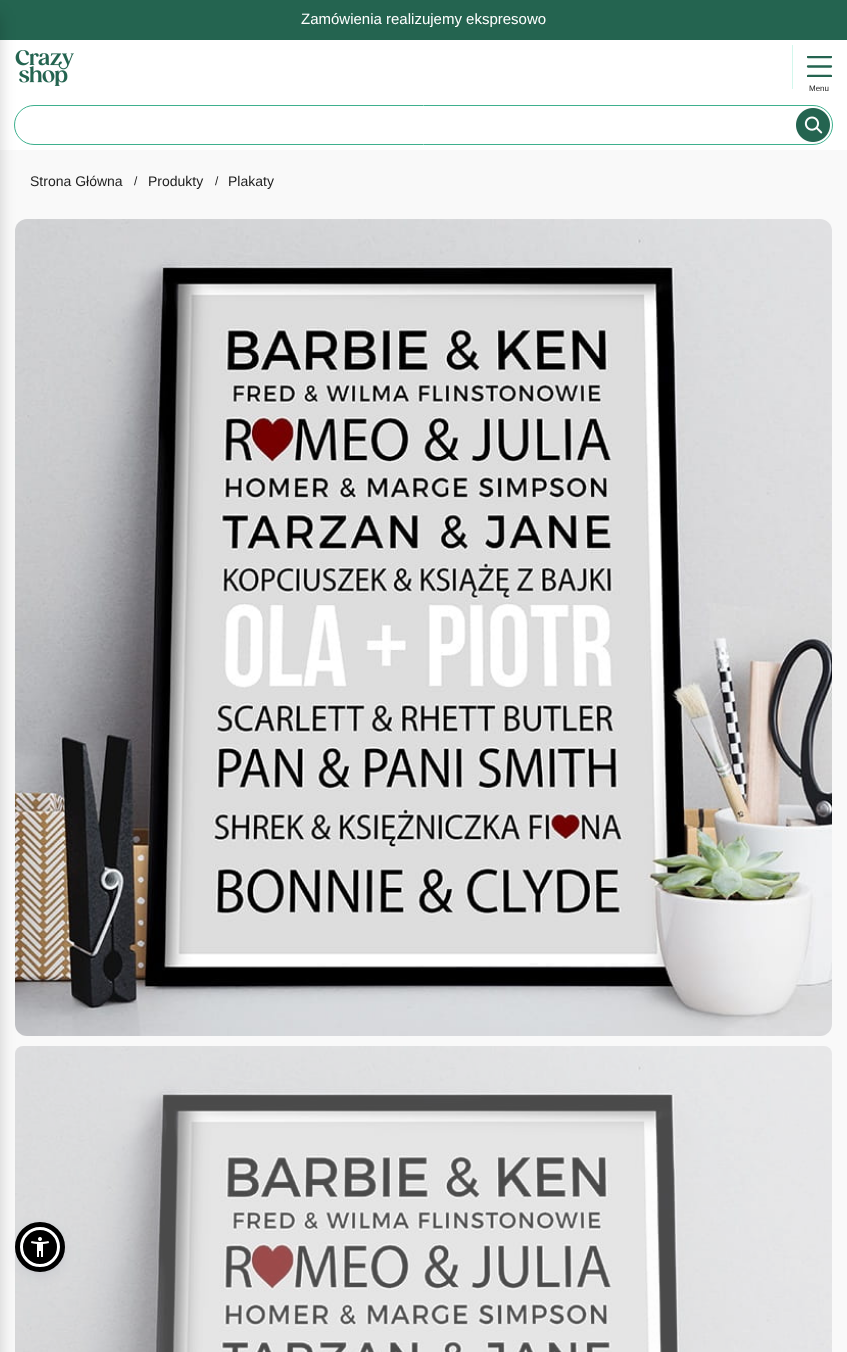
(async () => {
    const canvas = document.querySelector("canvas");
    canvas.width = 847;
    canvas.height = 1352;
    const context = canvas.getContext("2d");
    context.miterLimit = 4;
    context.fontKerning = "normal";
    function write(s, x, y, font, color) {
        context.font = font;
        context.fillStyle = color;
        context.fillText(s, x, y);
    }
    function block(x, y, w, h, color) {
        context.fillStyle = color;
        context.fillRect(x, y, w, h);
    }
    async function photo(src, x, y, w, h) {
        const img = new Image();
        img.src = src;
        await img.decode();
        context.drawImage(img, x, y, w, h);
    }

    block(0, 0, 847, 1352, "rgb(249, 249, 249)");
    block(0, 0, 847, 40, "rgb(36, 100, 80)");
    write("Zamówienia realizujemy ekspresowo", 301, 24, "15px Liberation Sans", "rgb(255, 255, 255)");
    block(0, 40, 847, 110, "rgb(255, 255, 255)");
    await photo("media/1.png", 15, 50, 59, 36);
    context.beginPath();
    context.roundRect(14.5, 105.5, 818, 39, 19.5);
    context.strokeStyle = "rgb(62, 176, 142)";
    context.stroke();
    await photo("media/2.png", 796, 108, 34, 34);
    block(792, 45, 1, 44, "rgb(210, 247, 236)");
    await photo("media/3.png", 15, 219, 817, 817);
    await photo("media/4.png", 15, 1046, 817, 306);
    context.fillStyle = "rgba(93, 100, 148, 0.2)";
    context.filter = "blur(2px)";
    context.beginPath();
    context.roundRect(20, 1229, 40, 40, 20);
    context.fill();
    context.filter = "none";
    context.fillStyle = "rgba(37, 44, 97, 0.15)";
    context.filter = "blur(7.5px)";
    context.beginPath();
    context.roundRect(20, 1232, 40, 40, 20);
    context.fill();
    context.filter = "none";
    context.fillStyle = "rgb(0, 0, 0)";
    context.beginPath();
    context.arc(40, 1247, 18.5, 0, Math.PI * 2);
    context.fill();
    context.strokeStyle = "rgb(255, 255, 255)";
    context.lineWidth = 3;
    context.stroke();
    context.beginPath();
    context.arc(40, 1247, 22.5, 0, Math.PI * 2);
    context.strokeStyle = "rgb(0, 0, 0)";
    context.lineWidth = 5;
    context.stroke();
    context.fillStyle = "rgba(0, 0, 0, 0.18)";
    context.filter = "blur(7.5px)";
    context.beginPath();
    context.rect(-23, 15, 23, 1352);
    context.fill();
    context.filter = "none";
    context.save();
    context.beginPath();
    context.rect(807, 56, 25, 21);
    context.clip();
    context.beginPath();
    context.moveTo(808, 57);
    context.lineTo(831, 57);
    context.strokeStyle = "rgb(36, 100, 80)";
    context.lineWidth = 2.3;
    context.lineCap = "round";
    context.stroke();
    context.restore();
    context.beginPath();
    context.moveTo(808, 66.5);
    context.lineTo(831, 66.5);
    context.strokeStyle = "rgb(36, 100, 80)";
    context.lineWidth = 2.3;
    context.lineCap = "round";
    context.stroke();
    context.save();
    context.beginPath();
    context.rect(807, 56, 25, 21);
    context.clip();
    context.beginPath();
    context.moveTo(808, 76);
    context.lineTo(831, 76);
    context.stroke();
    context.restore();
    write("Menu", 809, 91, "8px Liberation Sans", "rgb(33, 33, 33)");
    write("Strona Główna", 30, 186, "14px Liberation Sans", "rgb(33, 33, 33)");
    write("/", 134, 185, "12px Liberation Sans", "rgb(33, 33, 33)");
    write("Produkty", 148, 186, "14px Liberation Sans", "rgb(33, 33, 33)");
    write("/", 215, 185, "12px Liberation Sans", "rgb(33, 33, 33)");
    write("Plakaty", 228, 186, "14px Liberation Sans", "rgb(33, 33, 33)");
    await photo("media/5.png", 31, 1237, 18, 20);
})();
